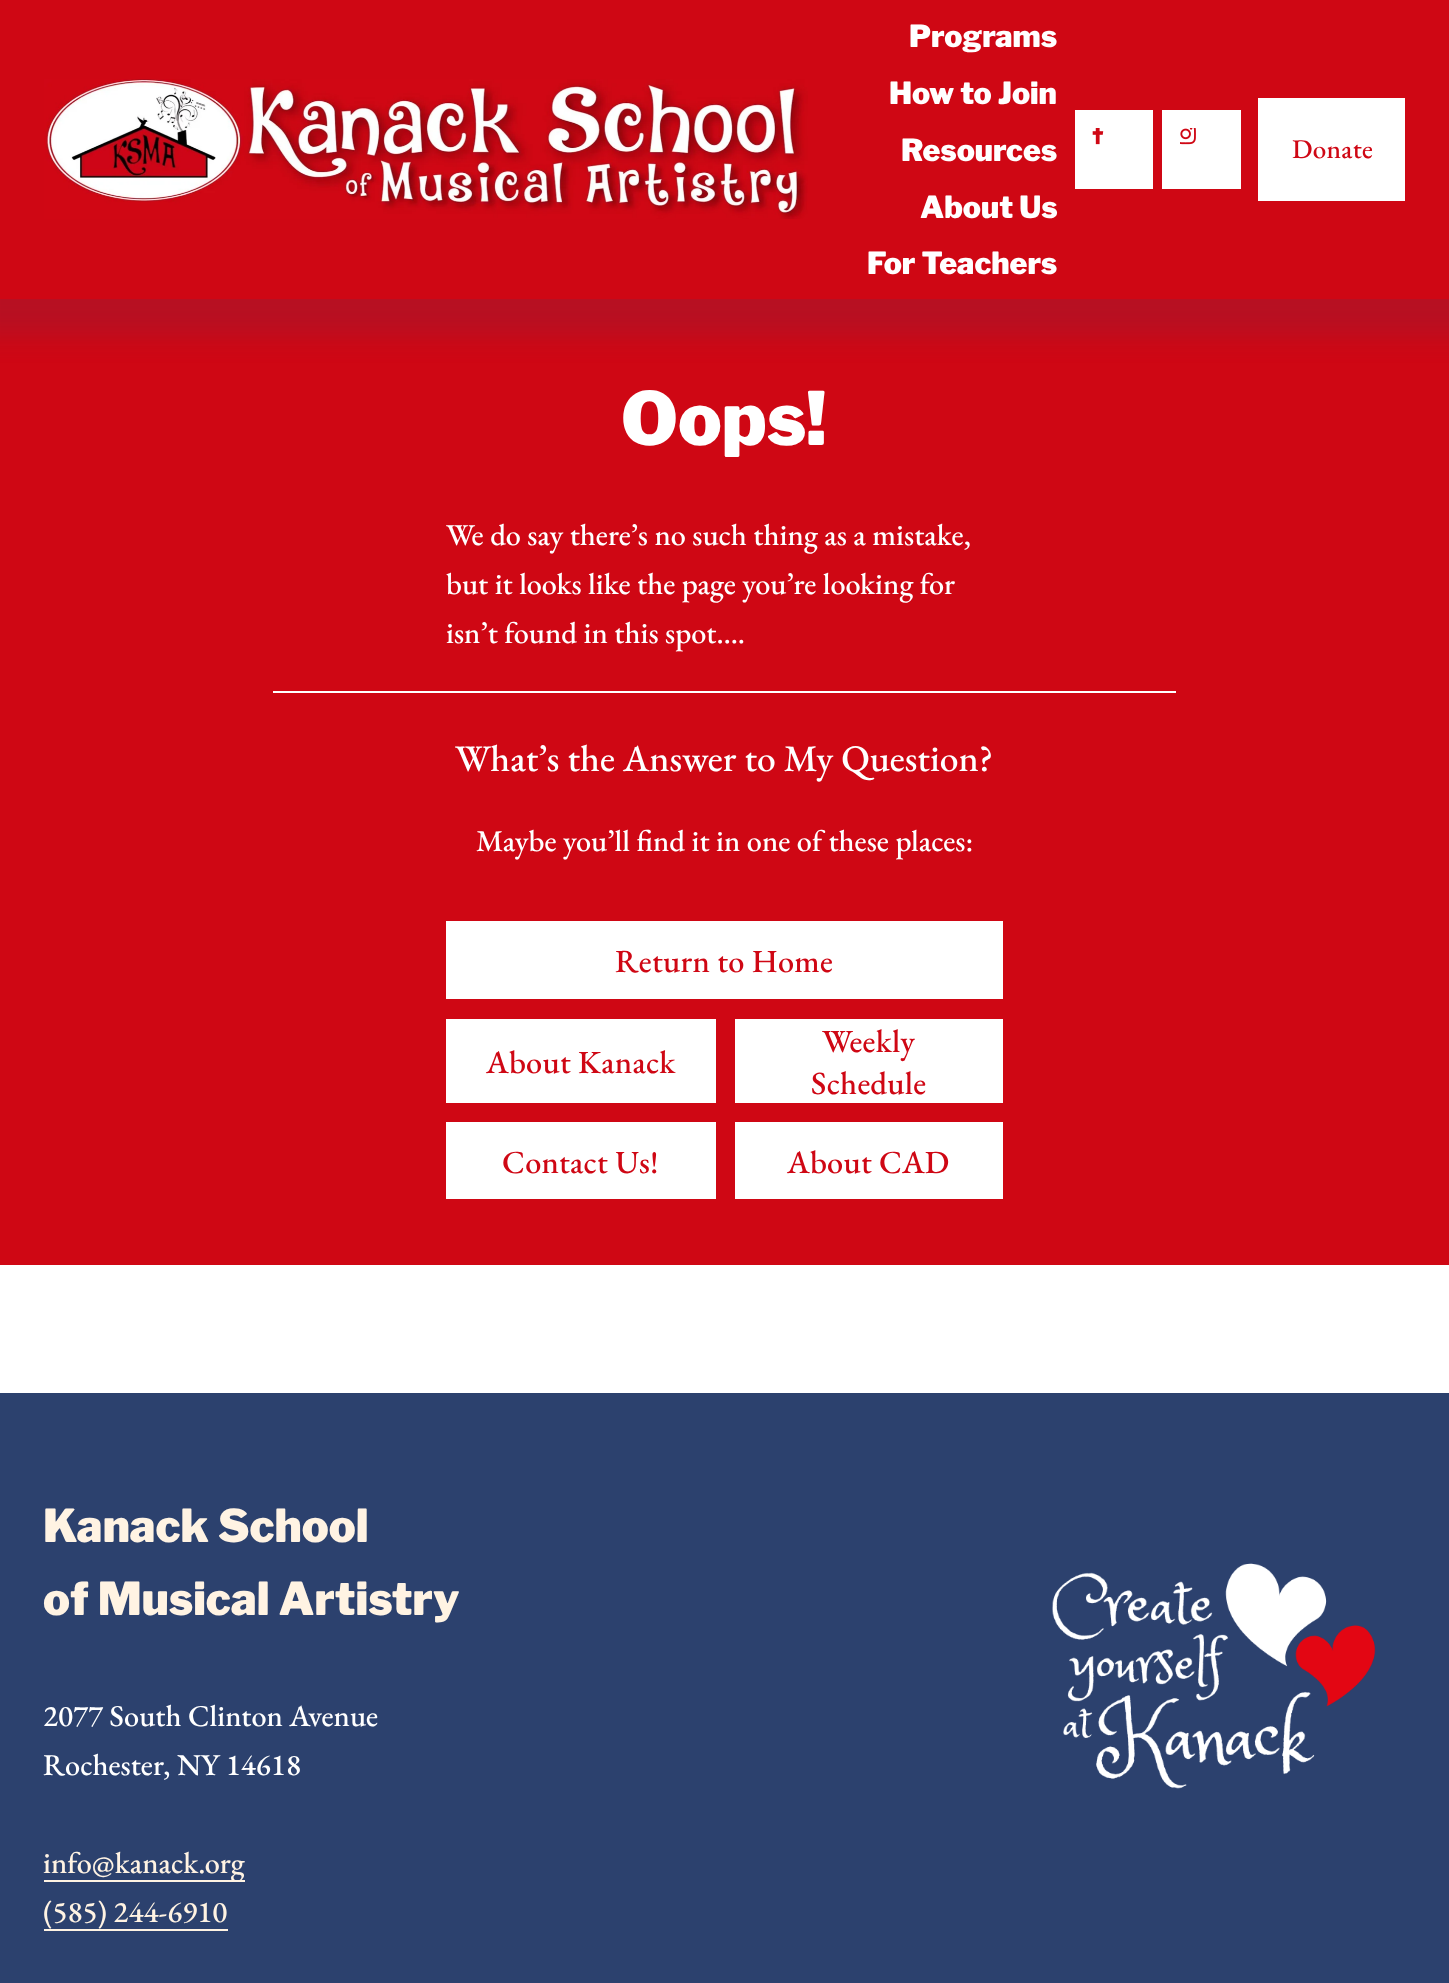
(async () => {
    const canvas = document.querySelector("canvas");
    canvas.width = 1449;
    canvas.height = 1983;
    const context = canvas.getContext("2d");
    context.miterLimit = 4;
    context.fontKerning = "normal";
    function write(s, x, y, font, color) {
        context.font = font;
        context.fillStyle = color;
        context.fillText(s, x, y);
    }
    function block(x, y, w, h, color) {
        context.fillStyle = color;
        context.fillRect(x, y, w, h);
    }
    async function photo(src, x, y, w, h) {
        const img = new Image();
        img.src = src;
        await img.decode();
        context.drawImage(img, x, y, w, h);
    }

    block(0, 0, 1449, 1983, "rgb(255, 255, 255)");
    block(0, 0, 1449, 1265, "rgb(207, 7, 20)");
    context.save();
    context.beginPath();
    context.rect(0, 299, 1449, 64);
    context.clip();
    context.fillStyle = "rgb(183, 16, 34)";
    context.filter = "blur(13px)";
    context.beginPath();
    context.rect(-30, -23, 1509, 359);
    context.fill();
    context.filter = "none";
    context.restore();
    await photo("media/1.png", 44, 79, 764, 140);
    write("Programs", 909, 47, "900 30.25px Libre Franklin", "rgb(255, 255, 255)");
    write("How to Join", 889, 104, "900 30.25px Libre Franklin", "rgb(255, 255, 255)");
    write("Resources", 901, 161, "900 30.25px Libre Franklin", "rgb(255, 255, 255)");
    write("About Us", 920, 218, "900 30.25px Libre Franklin", "rgb(255, 255, 255)");
    write("For Teachers", 867, 274, "900 30.25px Libre Franklin", "rgb(255, 255, 255)");
    block(1075, 110, 78, 79, "rgb(255, 255, 255)");
    await photo("media/2.png", 1092, 128, 12, 17);
    block(1162, 110, 79, 79, "rgb(255, 255, 255)");
    await photo("media/3.png", 1180, 128, 16, 17);
    block(1258, 98, 147, 103, "rgb(255, 255, 255)");
    context.letterSpacing = "0.25px";
    write("Donate", 1292, 158, "500 27px EB Garamond", "rgb(207, 7, 20)");
    context.letterSpacing = "0px";
    write("Oops!", 621, 445, "900 73px Libre Franklin", "rgb(255, 255, 255)");
    write("We do say there’s no such thing as a mistake,", 446, 545, "500 30.25px EB Garamond", "rgb(255, 255, 255)");
    write("but it looks like the page you’re looking for", 446, 594, "500 30.25px EB Garamond", "rgb(255, 255, 255)");
    write("isn’t found in this spot….", 446, 643, "500 30.25px EB Garamond", "rgb(255, 255, 255)");
    block(273, 691, 903, 2, "rgb(255, 255, 255)");
    write("What’s the Answer to My Question?", 455, 771, "500 37.5px EB Garamond", "rgb(255, 255, 255)");
    write("Maybe you’ll find it in one of these places:", 476, 851, "500 30.25px EB Garamond", "rgb(255, 255, 255)");
    block(446, 921, 557, 78, "rgb(255, 255, 255)");
    context.letterSpacing = "0.25px";
    write("Return to Home", 615, 972, "500 32.25px EB Garamond", "rgb(207, 7, 20)");
    block(446, 1019, 270, 84, "rgb(255, 255, 255)");
    write("About Kanack", 486, 1073, "500 32.25px EB Garamond", "rgb(207, 7, 20)");
    block(735, 1019, 268, 84, "rgb(255, 255, 255)");
    write("Weekly", 822, 1052, "500 32.25px EB Garamond", "rgb(207, 7, 20)");
    write("Schedule", 811, 1094, "500 32.25px EB Garamond", "rgb(207, 7, 20)");
    block(446, 1122, 270, 77, "rgb(255, 255, 255)");
    write("Contact Us!", 502, 1173, "500 32.25px EB Garamond", "rgb(207, 7, 20)");
    block(735, 1122, 268, 77, "rgb(255, 255, 255)");
    write("About CAD", 787, 1173, "500 32.25px EB Garamond", "rgb(207, 7, 20)");
    block(0, 1393, 1449, 590, "rgb(44, 65, 110)");
    context.letterSpacing = "0px";
    write("Kanack School", 43, 1542, "900 45px Libre Franklin", "rgb(255, 243, 227)");
    write("of Musical Artistry", 43, 1615, "900 45px Libre Franklin", "rgb(255, 243, 227)");
    write("2077 South Clinton Avenue", 43, 1726, "500 30.25px EB Garamond", "rgb(255, 255, 255)");
    write("Rochester, NY 14618", 43, 1775, "500 30.25px EB Garamond", "rgb(255, 255, 255)");
    block(44, 1880, 201, 2, "rgb(255, 243, 227)");
    write("info@kanack.org", 43, 1873, "500 30.25px EB Garamond", "rgb(255, 243, 227)");
    write("(585) 244-6910", 43, 1922, "500 30.25px EB Garamond", "rgb(255, 243, 227)");
    block(44, 1929, 184, 2, "rgb(255, 243, 227)");
    await photo("media/4.png", 1052, 1563, 324, 226);
})();
